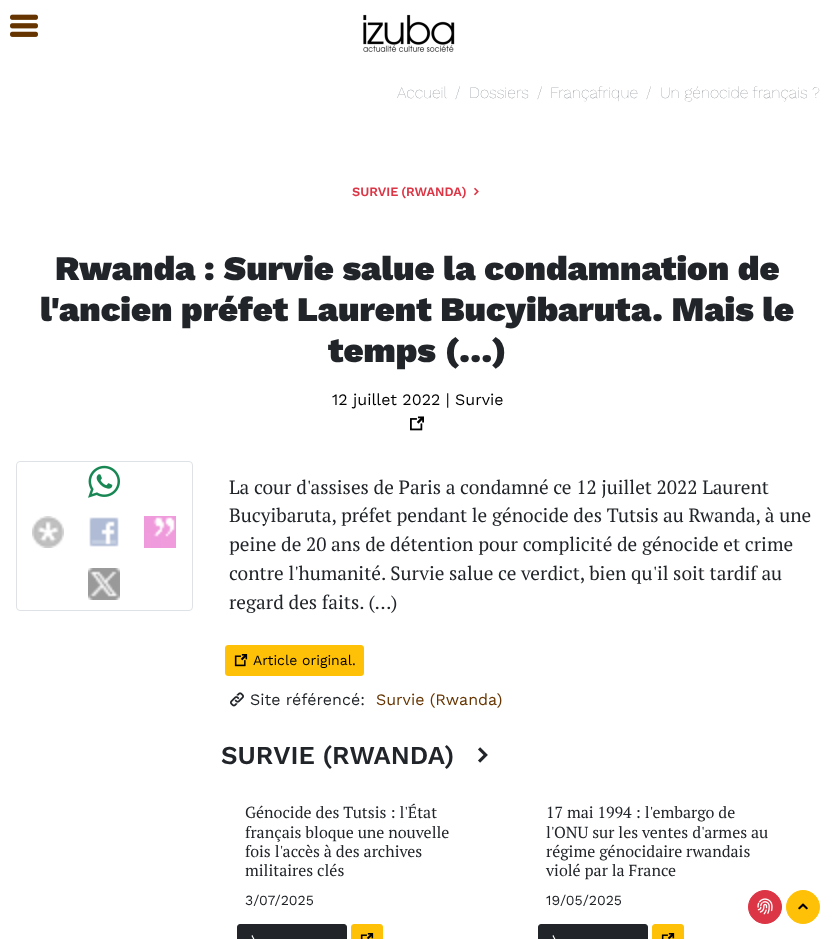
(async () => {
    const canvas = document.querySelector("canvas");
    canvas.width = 835;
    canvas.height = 939;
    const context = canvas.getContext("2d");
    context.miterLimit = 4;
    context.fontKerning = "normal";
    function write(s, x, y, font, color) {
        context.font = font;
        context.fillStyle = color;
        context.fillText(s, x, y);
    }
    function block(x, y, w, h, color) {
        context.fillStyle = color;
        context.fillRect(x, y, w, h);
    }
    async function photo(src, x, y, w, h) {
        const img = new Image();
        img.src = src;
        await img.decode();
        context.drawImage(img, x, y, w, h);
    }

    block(0, 0, 835, 939, "rgb(255, 255, 255)");
    await photo("media/1.png", 10, 14, 28, 23);
    await photo("media/2.png", 363, 14, 92, 38);
    write("Accueil", 397, 98, "100 16px Work Sans", "rgb(108, 117, 125)");
    write("/", 455, 98, "100 16px Work Sans", "rgb(108, 117, 125)");
    write("Dossiers", 469, 98, "100 16px Work Sans", "rgb(108, 117, 125)");
    write("/", 537, 98, "100 16px Work Sans", "rgb(108, 117, 125)");
    write("Françafrique", 550, 98, "100 16px Work Sans", "rgb(108, 117, 125)");
    write("/", 646, 98, "100 16px Work Sans", "rgb(108, 117, 125)");
    write("Un génocide français ?", 660, 98, "100 16px Work Sans", "rgb(108, 117, 125)");
    context.wordSpacing = "-1px";
    write("SURVIE (RWANDA)", 352, 196, "600 12.75px Work Sans", "rgb(220, 53, 69)");
    await photo("media/3.png", 474, 187, 5, 9);
    context.wordSpacing = "0px";
    write("Rwanda : Survie salue la condamnation de", 55, 280, "900 34.5px Work Sans", "rgb(33, 37, 41)");
    write("l'ancien préfet Laurent Bucyibaruta. Mais le", 40, 321, "900 34.5px Work Sans", "rgb(33, 37, 41)");
    write("temps (…)", 328, 362, "900 34.5px Work Sans", "rgb(33, 37, 41)");
    write("12 juillet 2022 | Survie", 332, 405, "16px Work Sans", "rgb(0, 0, 0)");
    await photo("media/4.png", 410, 416, 14, 15);
    context.beginPath();
    context.roundRect(16.5, 461.5, 176, 149, 3.5);
    context.strokeStyle = "rgb(222, 226, 230)";
    context.stroke();
    await photo("media/5.png", 88, 465, 32, 33);
    await photo("media/6.png", 32, 516, 32, 32);
    await photo("media/7.png", 89, 517, 30, 30);
    await photo("media/8.png", 144, 516, 32, 32);
    await photo("media/9.png", 88, 568, 32, 32);
    write("La cour d'assises de Paris a condamné ce 12 juillet 2022 Laurent", 229, 494, "19.2px PT Serif", "rgb(33, 37, 41)");
    write("Bucyibaruta, préfet pendant le génocide des Tutsis au Rwanda, à une", 229, 522, "19.2px PT Serif", "rgb(33, 37, 41)");
    write("peine de 20 ans de détention pour complicité de génocide et crime", 229, 551, "19.2px PT Serif", "rgb(33, 37, 41)");
    write("contre l'humanité. Survie salue ce verdict, bien qu'il soit tardif au", 229, 580, "19.2px PT Serif", "rgb(33, 37, 41)");
    write("regard des faits. (…)", 229, 609, "19.2px PT Serif", "rgb(33, 37, 41)");
    context.fillStyle = "rgb(255, 193, 7)";
    context.beginPath();
    context.roundRect(225.5, 645.5, 138, 30, 2.5);
    context.fill();
    context.strokeStyle = "rgb(255, 193, 7)";
    context.stroke();
    await photo("media/10.png", 234, 654, 14, 13);
    write("Article original.", 253, 665, "14px Work Sans", "rgb(0, 0, 0)");
    await photo("media/11.png", 230, 692, 14, 15);
    write("Site référencé:", 250, 705, "16px Work Sans", "rgb(33, 37, 41)");
    write("Survie (Rwanda)", 376, 705, "16px Work Sans", "rgb(101, 52, 0)");
    write("SURVIE (RWANDA)", 221, 764, "600 25.75px Work Sans", "rgb(33, 37, 41)");
    await photo("media/12.png", 478, 747, 10, 16);
    write("Génocide des Tutsis : l'État", 245, 818, "16px PT Serif", "rgb(33, 37, 41)");
    write("français bloque une nouvelle", 245, 838, "16px PT Serif", "rgb(33, 37, 41)");
    write("fois l'accès à des archives", 245, 857, "16px PT Serif", "rgb(33, 37, 41)");
    write("militaires clés", 245, 876, "16px PT Serif", "rgb(33, 37, 41)");
    write("3/07/2025", 245, 905, "14px Work Sans", "rgb(33, 37, 41)");
    context.beginPath();
    context.roundRect(237.5, 924.5, 109, 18, 2.5);
    context.fill();
    context.strokeStyle = "rgb(33, 37, 41)";
    context.stroke();
    await photo("media/13.png", 251, 935, 4, 4);
    context.fillStyle = "rgb(255, 193, 7)";
    context.beginPath();
    context.roundRect(351.5, 924.5, 31, 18, 2.5);
    context.fill();
    context.strokeStyle = "rgb(255, 193, 7)";
    context.stroke();
    await photo("media/14.png", 360, 933, 14, 6);
    write("17 mai 1994 : l'embargo de", 546, 818, "16px PT Serif", "rgb(33, 37, 41)");
    write("l'ONU sur les ventes d'armes au", 546, 838, "16px PT Serif", "rgb(33, 37, 41)");
    write("régime génocidaire rwandais", 546, 857, "16px PT Serif", "rgb(33, 37, 41)");
    write("violé par la France", 546, 876, "16px PT Serif", "rgb(33, 37, 41)");
    write("19/05/2025", 546, 905, "14px Work Sans", "rgb(33, 37, 41)");
    context.beginPath();
    context.roundRect(538.5, 924.5, 109, 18, 2.5);
    context.fill();
    context.strokeStyle = "rgb(33, 37, 41)";
    context.stroke();
    await photo("media/13.png", 552, 935, 4, 4);
    context.fillStyle = "rgb(255, 193, 7)";
    context.beginPath();
    context.roundRect(652.5, 924.5, 31, 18, 2.5);
    context.fill();
    context.strokeStyle = "rgb(255, 193, 7)";
    context.stroke();
    await photo("media/14.png", 661, 933, 14, 6);
    context.fillStyle = "rgb(220, 53, 69)";
    context.beginPath();
    context.arc(765, 907, 16.5, 0, Math.PI * 2);
    context.fill();
    context.strokeStyle = "rgb(220, 53, 69)";
    context.stroke();
    await photo("media/15.png", 757, 898, 16, 17);
    context.fillStyle = "rgb(255, 193, 7)";
    context.beginPath();
    context.arc(803, 907, 16.5, 0, Math.PI * 2);
    context.fill();
    context.strokeStyle = "rgb(255, 193, 7)";
    context.stroke();
    await photo("media/16.png", 798, 903, 10, 7);
})();
